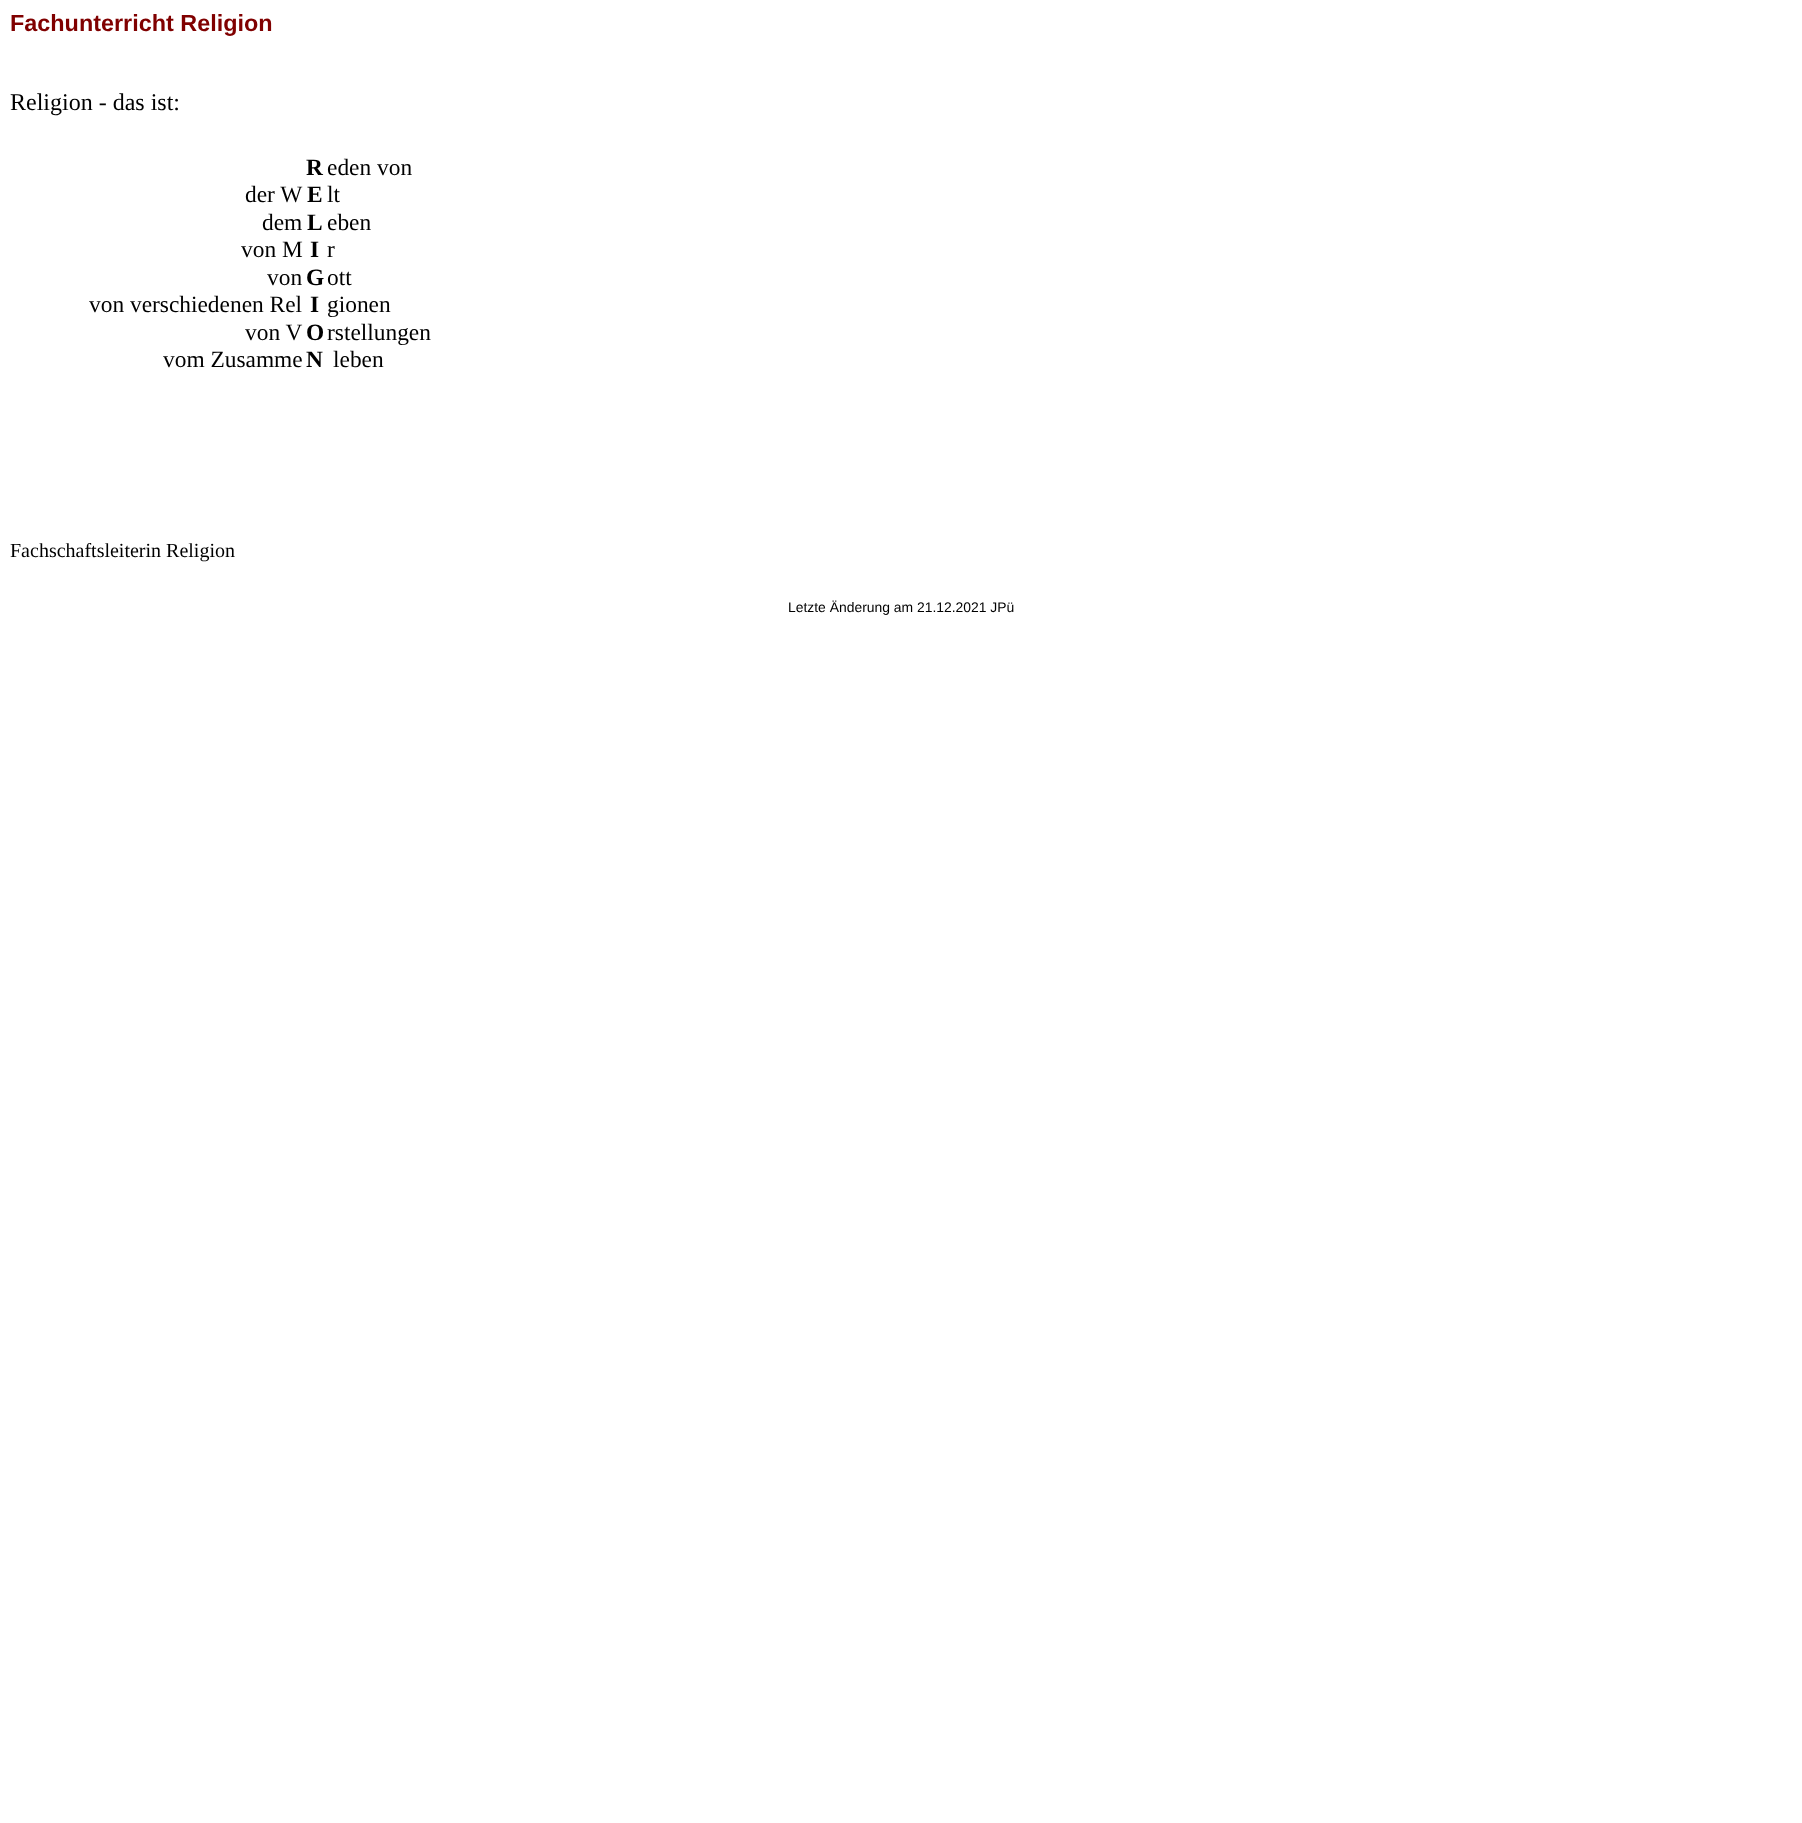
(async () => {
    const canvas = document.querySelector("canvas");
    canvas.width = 1802;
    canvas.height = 1823;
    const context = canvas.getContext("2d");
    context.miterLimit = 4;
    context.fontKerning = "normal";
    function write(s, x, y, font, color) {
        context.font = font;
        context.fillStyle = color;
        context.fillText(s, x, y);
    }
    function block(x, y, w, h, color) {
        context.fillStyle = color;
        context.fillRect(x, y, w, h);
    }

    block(0, 0, 1802, 1823, "rgb(255, 255, 255)");
    write("Fachunterricht Religion", 10, 31, "bold 23.4px Liberation Sans", "rgb(128, 0, 0)");
    write("Religion - das ist:", 10, 110, "24px Liberation Serif", "rgb(0, 0, 0)");
    write("der W", 245, 202, "23.4px Liberation Serif", "rgb(0, 0, 0)");
    write("dem", 262, 230, "23.4px Liberation Serif", "rgb(0, 0, 0)");
    write("von M", 241, 257, "23.4px Liberation Serif", "rgb(0, 0, 0)");
    write("von", 267, 285, "23.4px Liberation Serif", "rgb(0, 0, 0)");
    write("von verschiedenen Rel", 89, 312, "23.4px Liberation Serif", "rgb(0, 0, 0)");
    write("von V", 245, 340, "23.4px Liberation Serif", "rgb(0, 0, 0)");
    write("vom Zusamme", 163, 367, "23.4px Liberation Serif", "rgb(0, 0, 0)");
    write("R", 306, 175, "bold 23.4px Liberation Serif", "rgb(0, 0, 0)");
    write("E", 307, 202, "bold 23.4px Liberation Serif", "rgb(0, 0, 0)");
    write("L", 307, 230, "bold 23.4px Liberation Serif", "rgb(0, 0, 0)");
    write("I", 310, 257, "bold 23.4px Liberation Serif", "rgb(0, 0, 0)");
    write("G", 306, 285, "bold 23.4px Liberation Serif", "rgb(0, 0, 0)");
    write("I", 310, 312, "bold 23.4px Liberation Serif", "rgb(0, 0, 0)");
    write("O", 306, 340, "bold 23.4px Liberation Serif", "rgb(0, 0, 0)");
    write("N", 306, 367, "bold 23.4px Liberation Serif", "rgb(0, 0, 0)");
    write("eden von", 327, 175, "23.4px Liberation Serif", "rgb(0, 0, 0)");
    write("lt", 327, 202, "23.4px Liberation Serif", "rgb(0, 0, 0)");
    write("eben", 327, 230, "23.4px Liberation Serif", "rgb(0, 0, 0)");
    write("r", 327, 257, "23.4px Liberation Serif", "rgb(0, 0, 0)");
    write("ott", 327, 285, "23.4px Liberation Serif", "rgb(0, 0, 0)");
    write("gionen", 327, 312, "23.4px Liberation Serif", "rgb(0, 0, 0)");
    write("rstellungen", 327, 340, "23.4px Liberation Serif", "rgb(0, 0, 0)");
    write("leben", 333, 367, "23.4px Liberation Serif", "rgb(0, 0, 0)");
    write("Fachschaftsleiterin Religion", 10, 557, "20px Liberation Serif", "rgb(0, 0, 0)");
    write("Letzte Änderung am 21.12.2021 JPü", 788, 612, "13.9px Liberation Sans", "rgb(0, 0, 0)");
})();
